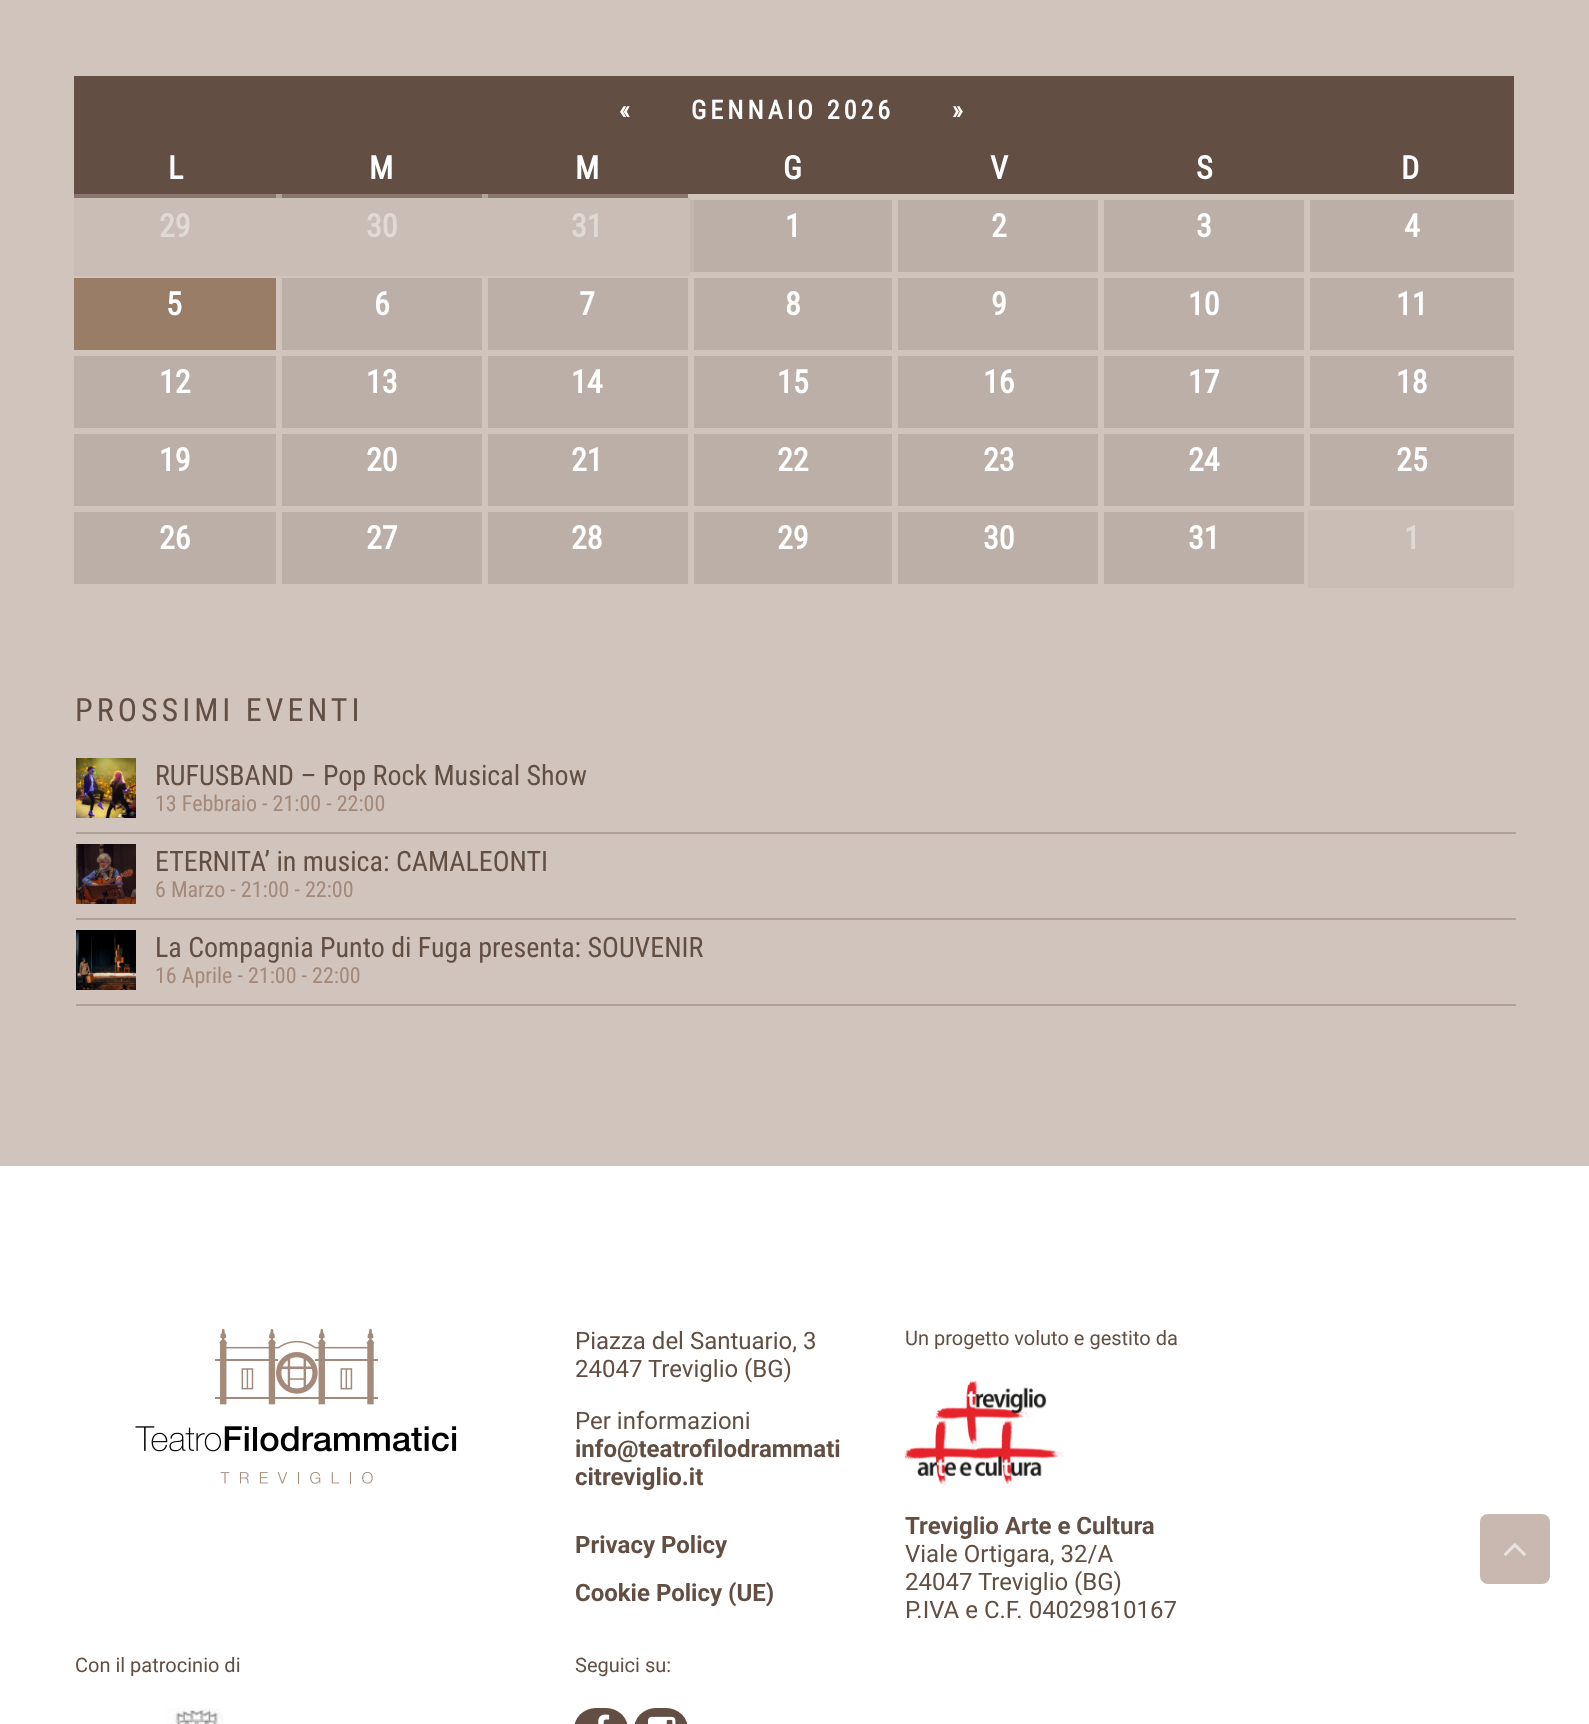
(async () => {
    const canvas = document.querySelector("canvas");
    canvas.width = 1589;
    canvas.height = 1724;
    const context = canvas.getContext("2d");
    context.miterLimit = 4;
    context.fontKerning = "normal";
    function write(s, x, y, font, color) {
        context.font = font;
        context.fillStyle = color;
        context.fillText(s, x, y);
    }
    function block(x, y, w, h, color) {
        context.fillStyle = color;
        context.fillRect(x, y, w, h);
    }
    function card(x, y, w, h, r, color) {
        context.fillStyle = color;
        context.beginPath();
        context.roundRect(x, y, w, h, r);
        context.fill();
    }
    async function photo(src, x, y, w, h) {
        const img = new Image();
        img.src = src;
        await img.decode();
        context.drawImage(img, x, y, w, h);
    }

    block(0, 0, 1589, 1724, "rgb(255, 255, 255)");
    block(0, 0, 1589, 1166, "rgb(209, 196, 188)");
    block(74, 76, 1440, 118, "rgb(98, 78, 66)");
    context.letterSpacing = "4px";
    write("«", 619, 119, "bold 26px Roboto Condensed", "rgb(255, 255, 255)");
    write("GENNAIO 2026", 691, 119, "bold 26px Roboto Condensed", "rgb(255, 255, 255)");
    write("»", 952, 119, "bold 26px Roboto Condensed", "rgb(255, 255, 255)");
    block(74, 194, 620, 4, "rgb(137, 119, 109)");
    block(276, 194, 6, 4, "rgb(178, 164, 155)");
    block(482, 194, 6, 4, "rgb(178, 164, 155)");
    context.letterSpacing = "0px";
    write("L", 168, 179, "bold 32px Roboto Condensed", "rgb(255, 255, 255)");
    write("M", 369, 179, "bold 32px Roboto Condensed", "rgb(255, 255, 255)");
    write("M", 575, 179, "bold 32px Roboto Condensed", "rgb(255, 255, 255)");
    write("G", 783, 179, "bold 32px Roboto Condensed", "rgb(255, 255, 255)");
    write("V", 990, 179, "bold 32px Roboto Condensed", "rgb(255, 255, 255)");
    write("S", 1196, 179, "bold 32px Roboto Condensed", "rgb(255, 255, 255)");
    write("D", 1401, 179, "bold 32px Roboto Condensed", "rgb(255, 255, 255)");
    block(690, 198, 4, 78, "rgb(195, 182, 174)");
    block(688, 194, 6, 6, "rgb(209, 196, 188)");
    block(688, 272, 6, 4, "rgb(209, 196, 188)");
    block(74, 198, 616, 78, "rgb(202, 189, 181)");
    write("29", 159, 237, "bold 32px Roboto Condensed", "rgb(225, 217, 211)");
    write("30", 366, 237, "bold 32px Roboto Condensed", "rgb(225, 217, 211)");
    write("31", 571, 237, "bold 32px Roboto Condensed", "rgb(225, 217, 211)");
    block(694, 200, 198, 72, "rgb(188, 175, 167)");
    write("1", 785, 237, "bold 32px Roboto Condensed", "rgb(255, 255, 255)");
    block(898, 200, 200, 72, "rgb(188, 175, 167)");
    write("2", 991, 237, "bold 32px Roboto Condensed", "rgb(255, 255, 255)");
    block(1104, 200, 200, 72, "rgb(188, 175, 167)");
    write("3", 1196, 237, "bold 32px Roboto Condensed", "rgb(255, 255, 255)");
    block(1310, 200, 204, 72, "rgb(188, 175, 167)");
    write("4", 1404, 237, "bold 32px Roboto Condensed", "rgb(255, 255, 255)");
    block(74, 278, 202, 72, "rgb(154, 125, 103)");
    write("5", 166, 315, "bold 32px Roboto Condensed", "rgb(255, 255, 255)");
    block(282, 278, 200, 72, "rgb(188, 175, 167)");
    write("6", 374, 315, "bold 32px Roboto Condensed", "rgb(255, 255, 255)");
    block(488, 278, 200, 72, "rgb(188, 175, 167)");
    write("7", 579, 315, "bold 32px Roboto Condensed", "rgb(255, 255, 255)");
    block(694, 278, 198, 72, "rgb(188, 175, 167)");
    write("8", 785, 315, "bold 32px Roboto Condensed", "rgb(255, 255, 255)");
    block(898, 278, 200, 72, "rgb(188, 175, 167)");
    write("9", 991, 315, "bold 32px Roboto Condensed", "rgb(255, 255, 255)");
    block(1104, 278, 200, 72, "rgb(188, 175, 167)");
    write("10", 1188, 315, "bold 32px Roboto Condensed", "rgb(255, 255, 255)");
    block(1310, 278, 204, 72, "rgb(188, 175, 167)");
    write("11", 1396, 315, "bold 32px Roboto Condensed", "rgb(255, 255, 255)");
    block(74, 356, 202, 72, "rgb(188, 175, 167)");
    write("12", 159, 393, "bold 32px Roboto Condensed", "rgb(255, 255, 255)");
    block(282, 356, 200, 72, "rgb(188, 175, 167)");
    write("13", 366, 393, "bold 32px Roboto Condensed", "rgb(255, 255, 255)");
    block(488, 356, 200, 72, "rgb(188, 175, 167)");
    write("14", 571, 393, "bold 32px Roboto Condensed", "rgb(255, 255, 255)");
    block(694, 356, 198, 72, "rgb(188, 175, 167)");
    write("15", 777, 393, "bold 32px Roboto Condensed", "rgb(255, 255, 255)");
    block(898, 356, 200, 72, "rgb(188, 175, 167)");
    write("16", 983, 393, "bold 32px Roboto Condensed", "rgb(255, 255, 255)");
    block(1104, 356, 200, 72, "rgb(188, 175, 167)");
    write("17", 1188, 393, "bold 32px Roboto Condensed", "rgb(255, 255, 255)");
    block(1310, 356, 204, 72, "rgb(188, 175, 167)");
    write("18", 1396, 393, "bold 32px Roboto Condensed", "rgb(255, 255, 255)");
    block(74, 434, 202, 72, "rgb(188, 175, 167)");
    write("19", 159, 471, "bold 32px Roboto Condensed", "rgb(255, 255, 255)");
    block(282, 434, 200, 72, "rgb(188, 175, 167)");
    write("20", 366, 471, "bold 32px Roboto Condensed", "rgb(255, 255, 255)");
    block(488, 434, 200, 72, "rgb(188, 175, 167)");
    write("21", 571, 471, "bold 32px Roboto Condensed", "rgb(255, 255, 255)");
    block(694, 434, 198, 72, "rgb(188, 175, 167)");
    write("22", 777, 471, "bold 32px Roboto Condensed", "rgb(255, 255, 255)");
    block(898, 434, 200, 72, "rgb(188, 175, 167)");
    write("23", 983, 471, "bold 32px Roboto Condensed", "rgb(255, 255, 255)");
    block(1104, 434, 200, 72, "rgb(188, 175, 167)");
    write("24", 1188, 471, "bold 32px Roboto Condensed", "rgb(255, 255, 255)");
    block(1310, 434, 204, 72, "rgb(188, 175, 167)");
    write("25", 1396, 471, "bold 32px Roboto Condensed", "rgb(255, 255, 255)");
    block(74, 512, 202, 72, "rgb(188, 175, 167)");
    write("26", 159, 549, "bold 32px Roboto Condensed", "rgb(255, 255, 255)");
    block(282, 512, 200, 72, "rgb(188, 175, 167)");
    write("27", 366, 549, "bold 32px Roboto Condensed", "rgb(255, 255, 255)");
    block(488, 512, 200, 72, "rgb(188, 175, 167)");
    write("28", 571, 549, "bold 32px Roboto Condensed", "rgb(255, 255, 255)");
    block(694, 512, 198, 72, "rgb(188, 175, 167)");
    write("29", 777, 549, "bold 32px Roboto Condensed", "rgb(255, 255, 255)");
    block(898, 512, 200, 72, "rgb(188, 175, 167)");
    write("30", 983, 549, "bold 32px Roboto Condensed", "rgb(255, 255, 255)");
    block(1104, 512, 200, 72, "rgb(188, 175, 167)");
    write("31", 1188, 549, "bold 32px Roboto Condensed", "rgb(255, 255, 255)");
    block(1308, 510, 206, 78, "rgb(202, 189, 181)");
    write("1", 1404, 549, "bold 32px Roboto Condensed", "rgb(225, 217, 211)");
    context.letterSpacing = "4px";
    write("PROSSIMI EVENTI", 75, 721, "32px Roboto Condensed", "rgb(98, 78, 66)");
    block(76, 832, 1440, 2, "rgb(176, 161, 151)");
    await photo("media/1.png", 76, 758, 60, 60);
    context.letterSpacing = "0px";
    write("RUFUSBAND – Pop Rock Musical Show", 155, 785, "28px Roboto Condensed", "rgb(98, 78, 66)");
    write("13 Febbraio - 21:00 - 22:00", 155, 811, "22px Roboto Condensed", "rgb(164, 137, 122)");
    block(76, 918, 1440, 2, "rgb(176, 161, 151)");
    await photo("media/2.png", 76, 844, 60, 60);
    write("ETERNITA’ in musica: CAMALEONTI", 155, 871, "28px Roboto Condensed", "rgb(98, 78, 66)");
    write("6 Marzo - 21:00 - 22:00", 155, 897, "22px Roboto Condensed", "rgb(164, 137, 122)");
    block(76, 1004, 1440, 2, "rgb(176, 161, 151)");
    await photo("media/3.png", 76, 930, 60, 60);
    write("La Compagnia Punto di Fuga presenta: SOUVENIR", 155, 957, "28px Roboto Condensed", "rgb(98, 78, 66)");
    write("16 Aprile - 21:00 - 22:00", 155, 983, "22px Roboto Condensed", "rgb(164, 137, 122)");
    await photo("media/4.png", 135, 1328, 322, 156);
    write("Piazza del Santuario, 3", 575, 1349, "24px Roboto", "rgb(98, 78, 66)");
    write("24047 Treviglio (BG)", 575, 1377, "24px Roboto", "rgb(98, 78, 66)");
    write("Per informazioni", 575, 1429, "24px Roboto", "rgb(98, 78, 66)");
    write("info@teatrofilodrammati", 575, 1457, "bold 24px Roboto", "rgb(98, 78, 66)");
    write("citreviglio.it", 575, 1485, "bold 24px Roboto", "rgb(98, 78, 66)");
    write("Privacy Policy", 575, 1553, "bold 24px Roboto", "rgb(98, 78, 66)");
    write("Cookie Policy (UE)", 575, 1601, "bold 24px Roboto", "rgb(98, 78, 66)");
    write("Un progetto voluto e gestito da", 905, 1345, "20px Roboto", "rgb(98, 78, 66)");
    await photo("media/5.png", 904, 1380, 160, 108);
    write("Treviglio Arte e Cultura", 905, 1534, "bold 24px Roboto", "rgb(98, 78, 66)");
    write("Viale Ortigara, 32/A", 905, 1562, "24px Roboto", "rgb(98, 78, 66)");
    write("24047 Treviglio (BG)", 905, 1590, "24px Roboto", "rgb(98, 78, 66)");
    write("P.IVA e C.F. 04029810167", 905, 1618, "24px Roboto", "rgb(98, 78, 66)");
    write("Con il patrocinio di", 75, 1672, "20px Roboto", "rgb(98, 78, 66)");
    await photo("media/6.png", 167, 1708, 56, 16);
    write("Seguici su:", 575, 1672, "20px Roboto", "rgb(98, 78, 66)");
    card(574, 1708, 54, 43, 27, "rgb(98, 78, 66)");
    await photo("media/7.png", 598, 1714, 12, 10);
    card(634, 1708, 54, 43, 27, "rgb(98, 78, 66)");
    await photo("media/8.png", 648, 1716, 28, 8);
    card(1480, 1514, 70, 70, 8, "rgb(200, 184, 175)");
    await photo("media/9.png", 1503, 1543, 23, 13);
})();
